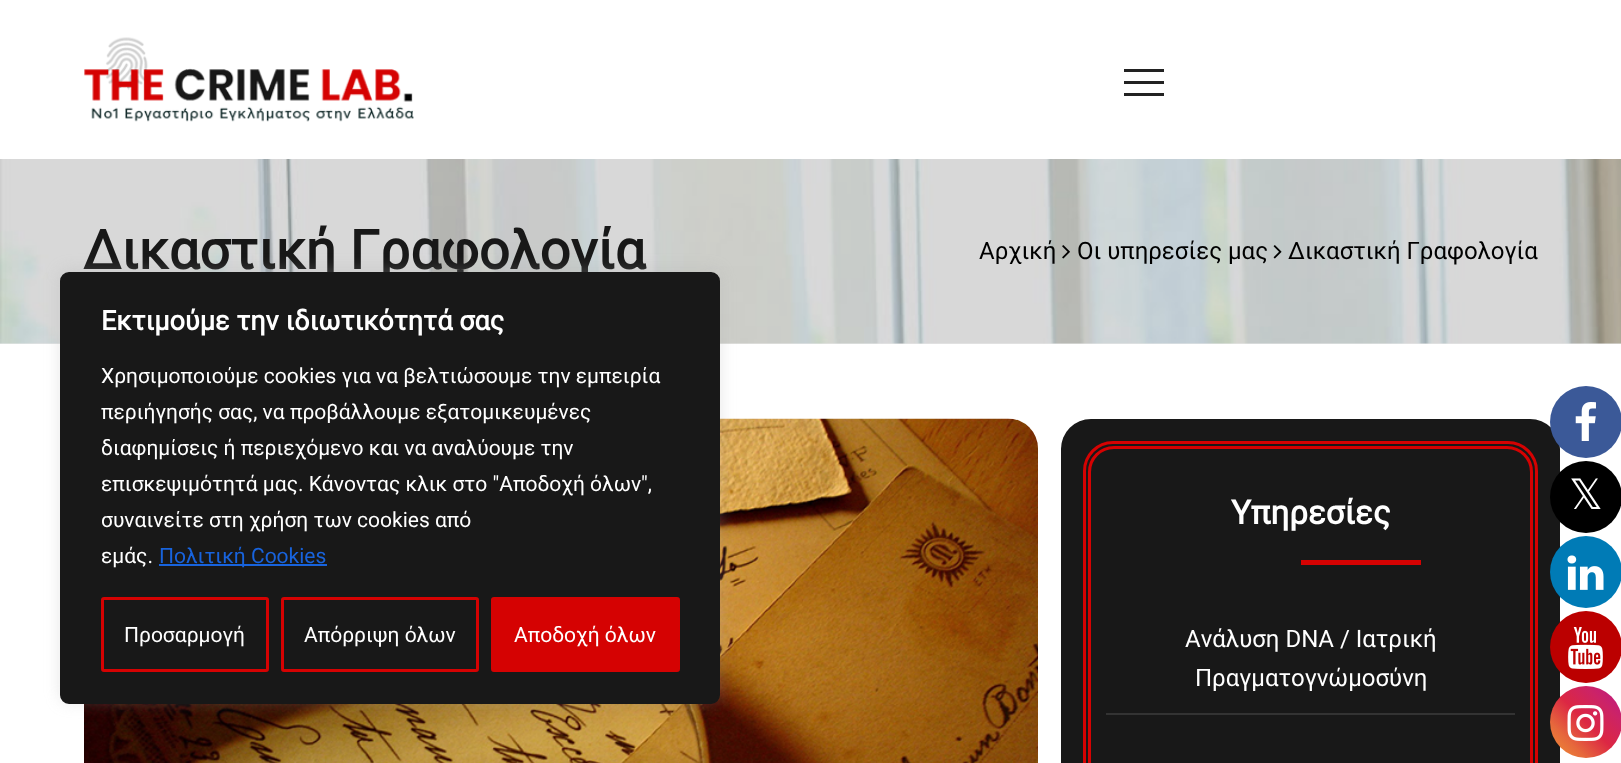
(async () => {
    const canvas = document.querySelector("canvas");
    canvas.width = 1621;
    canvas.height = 763;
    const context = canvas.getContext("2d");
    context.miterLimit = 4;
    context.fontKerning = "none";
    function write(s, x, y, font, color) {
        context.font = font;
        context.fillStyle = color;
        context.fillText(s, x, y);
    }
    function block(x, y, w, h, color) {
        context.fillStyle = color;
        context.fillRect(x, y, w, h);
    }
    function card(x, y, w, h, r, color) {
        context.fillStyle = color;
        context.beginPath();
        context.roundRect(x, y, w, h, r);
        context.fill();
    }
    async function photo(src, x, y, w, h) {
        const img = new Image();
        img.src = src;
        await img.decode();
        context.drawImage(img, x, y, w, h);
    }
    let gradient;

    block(0, 0, 1621, 763, "rgb(255, 255, 255)");
    block(0, 343, 1621, 1, "rgb(235, 235, 235)");
    await photo("media/1.png", 84, 37, 330, 85);
    block(1124, 81, 40, 3, "rgb(34, 34, 34)");
    block(1124, 69, 40, 3, "rgb(34, 34, 34)");
    block(1124, 93, 40, 3, "rgb(34, 34, 34)");
    await photo("media/2.png", 0, 159, 1621, 185);
    write("Δικαστική Γραφολογία", 83, 269, "bold 54px Roboto", "rgb(24, 24, 24)");
    write("Αρχική", 979, 259, "24px Roboto", "rgb(0, 0, 0)");
    await photo("media/3.png", 1062, 245, 8, 14);
    write("Οι υπηρεσίες μας", 1077, 259, "24px Roboto", "rgb(0, 0, 0)");
    await photo("media/4.png", 1273, 245, 9, 14);
    write("Δικαστική Γραφολογία", 1288, 259, "24px Roboto", "rgb(0, 0, 0)");
    await photo("media/5.png", 84, 418, 954, 345);
    card(1061, 419, 499, 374, 30, "rgb(24, 24, 24)");
    context.beginPath();
    context.roundRect(1084.5, 442.5, 452, 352, 28.5);
    context.strokeStyle = "rgb(213, 2, 2)";
    context.lineWidth = 3;
    context.stroke();
    context.beginPath();
    context.roundRect(1089.5, 447.5, 442, 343, 24.5);
    context.stroke();
    write("Υπηρεσίες", 1231, 524, "bold 33px Roboto", "rgb(255, 255, 255)");
    block(1301, 560, 120, 5, "rgb(213, 2, 2)");
    block(1106, 713, 409, 2, "rgb(51, 51, 51)");
    write("Ανάλυση DNA / Ιατρική", 1185, 647, "24px Roboto", "rgb(255, 255, 255)");
    write("Πραγματογνώμοσύνη", 1195, 686, "24px Roboto", "rgb(255, 255, 255)");
    context.fillStyle = "rgba(172, 171, 171, 0.3)";
    context.filter = "blur(7.5px)";
    context.beginPath();
    context.roundRect(60, 270, 660, 432, 9);
    context.fill();
    context.filter = "none";
    context.fillStyle = "rgb(24, 24, 24)";
    context.beginPath();
    context.roundRect(61, 273, 658, 430, 8);
    context.fill();
    context.strokeStyle = "rgb(24, 24, 24)";
    context.lineWidth = 2;
    context.stroke();
    write("Εκτιμούμε την ιδιωτικότητά σας", 101, 330, "bold 27px Roboto", "rgb(255, 255, 255)");
    write("Χρησιμοποιούμε cookies για να βελτιώσουμε την εμπειρία", 101, 383, "21px Roboto", "rgb(255, 255, 255)");
    write("περιήγησής σας, να προβάλλουμε εξατομικευμένες", 101, 419, "21px Roboto", "rgb(255, 255, 255)");
    write("διαφημίσεις ή περιεχόμενο και να αναλύουμε την", 101, 455, "21px Roboto", "rgb(255, 255, 255)");
    write("επισκεψιμότητά μας. Κάνοντας κλικ στο \"Αποδοχή όλων\",", 101, 491, "21px Roboto", "rgb(255, 255, 255)");
    write("συναινείτε στη χρήση των cookies από", 101, 527, "21px Roboto", "rgb(255, 255, 255)");
    write("εμάς.", 101, 563, "21px Roboto", "rgb(255, 255, 255)");
    block(159, 564, 168, 2, "rgb(24, 99, 220)");
    write("Πολιτική Cookies", 159, 563, "21px Roboto", "rgb(24, 99, 220)");
    context.beginPath();
    context.roundRect(102.5, 598.5, 165, 72, 1.5);
    context.strokeStyle = "rgb(213, 2, 2)";
    context.lineWidth = 3;
    context.stroke();
    write("Προσαρμογή", 124, 642, "21px Roboto", "rgb(255, 255, 255)");
    context.beginPath();
    context.roundRect(282.5, 598.5, 195, 72, 1.5);
    context.stroke();
    write("Απόρριψη όλων", 304, 642, "21px Roboto", "rgb(255, 255, 255)");
    context.fillStyle = "rgb(213, 2, 2)";
    context.beginPath();
    context.roundRect(492.5, 598.5, 186, 72, 1.5);
    context.fill();
    context.stroke();
    write("Αποδοχή όλων", 514, 642, "21px Roboto", "rgb(255, 255, 255)");
    context.fillStyle = "rgb(59, 89, 152)";
    context.beginPath();
    context.arc(1586, 422, 36, 0, Math.PI * 2);
    context.fill();
    await photo("media/6.png", 1575, 402, 21, 39);
    context.fillStyle = "rgb(0, 0, 0)";
    context.beginPath();
    context.arc(1586, 497, 36, 0, Math.PI * 2);
    context.fill();
    write("𝕏", 1569, 509, "42px DejaVu Sans", "rgb(255, 255, 255)");
    context.fillStyle = "rgb(0, 123, 182)";
    context.beginPath();
    context.arc(1586, 572, 36, 0, Math.PI * 2);
    context.fill();
    await photo("media/7.png", 1567, 555, 37, 35);
    context.fillStyle = "rgb(187, 0, 0)";
    context.beginPath();
    context.arc(1586, 647, 36, 0, Math.PI * 2);
    context.fill();
    await photo("media/8.png", 1568, 627, 35, 42);
    gradient = context.createLinearGradient(1550, 758, 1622, 686);
    gradient.addColorStop(0, "rgb(240, 148, 51)");
    gradient.addColorStop(0.25, "rgb(230, 104, 60)");
    gradient.addColorStop(0.5, "rgb(220, 39, 67)");
    gradient.addColorStop(0.75, "rgb(204, 35, 102)");
    gradient.addColorStop(1, "rgb(188, 24, 136)");
    context.fillStyle = gradient;
    context.beginPath();
    context.arc(1586, 722, 36, 0, Math.PI * 2);
    context.fill();
    await photo("media/9.png", 1567, 705, 37, 36);
})();
